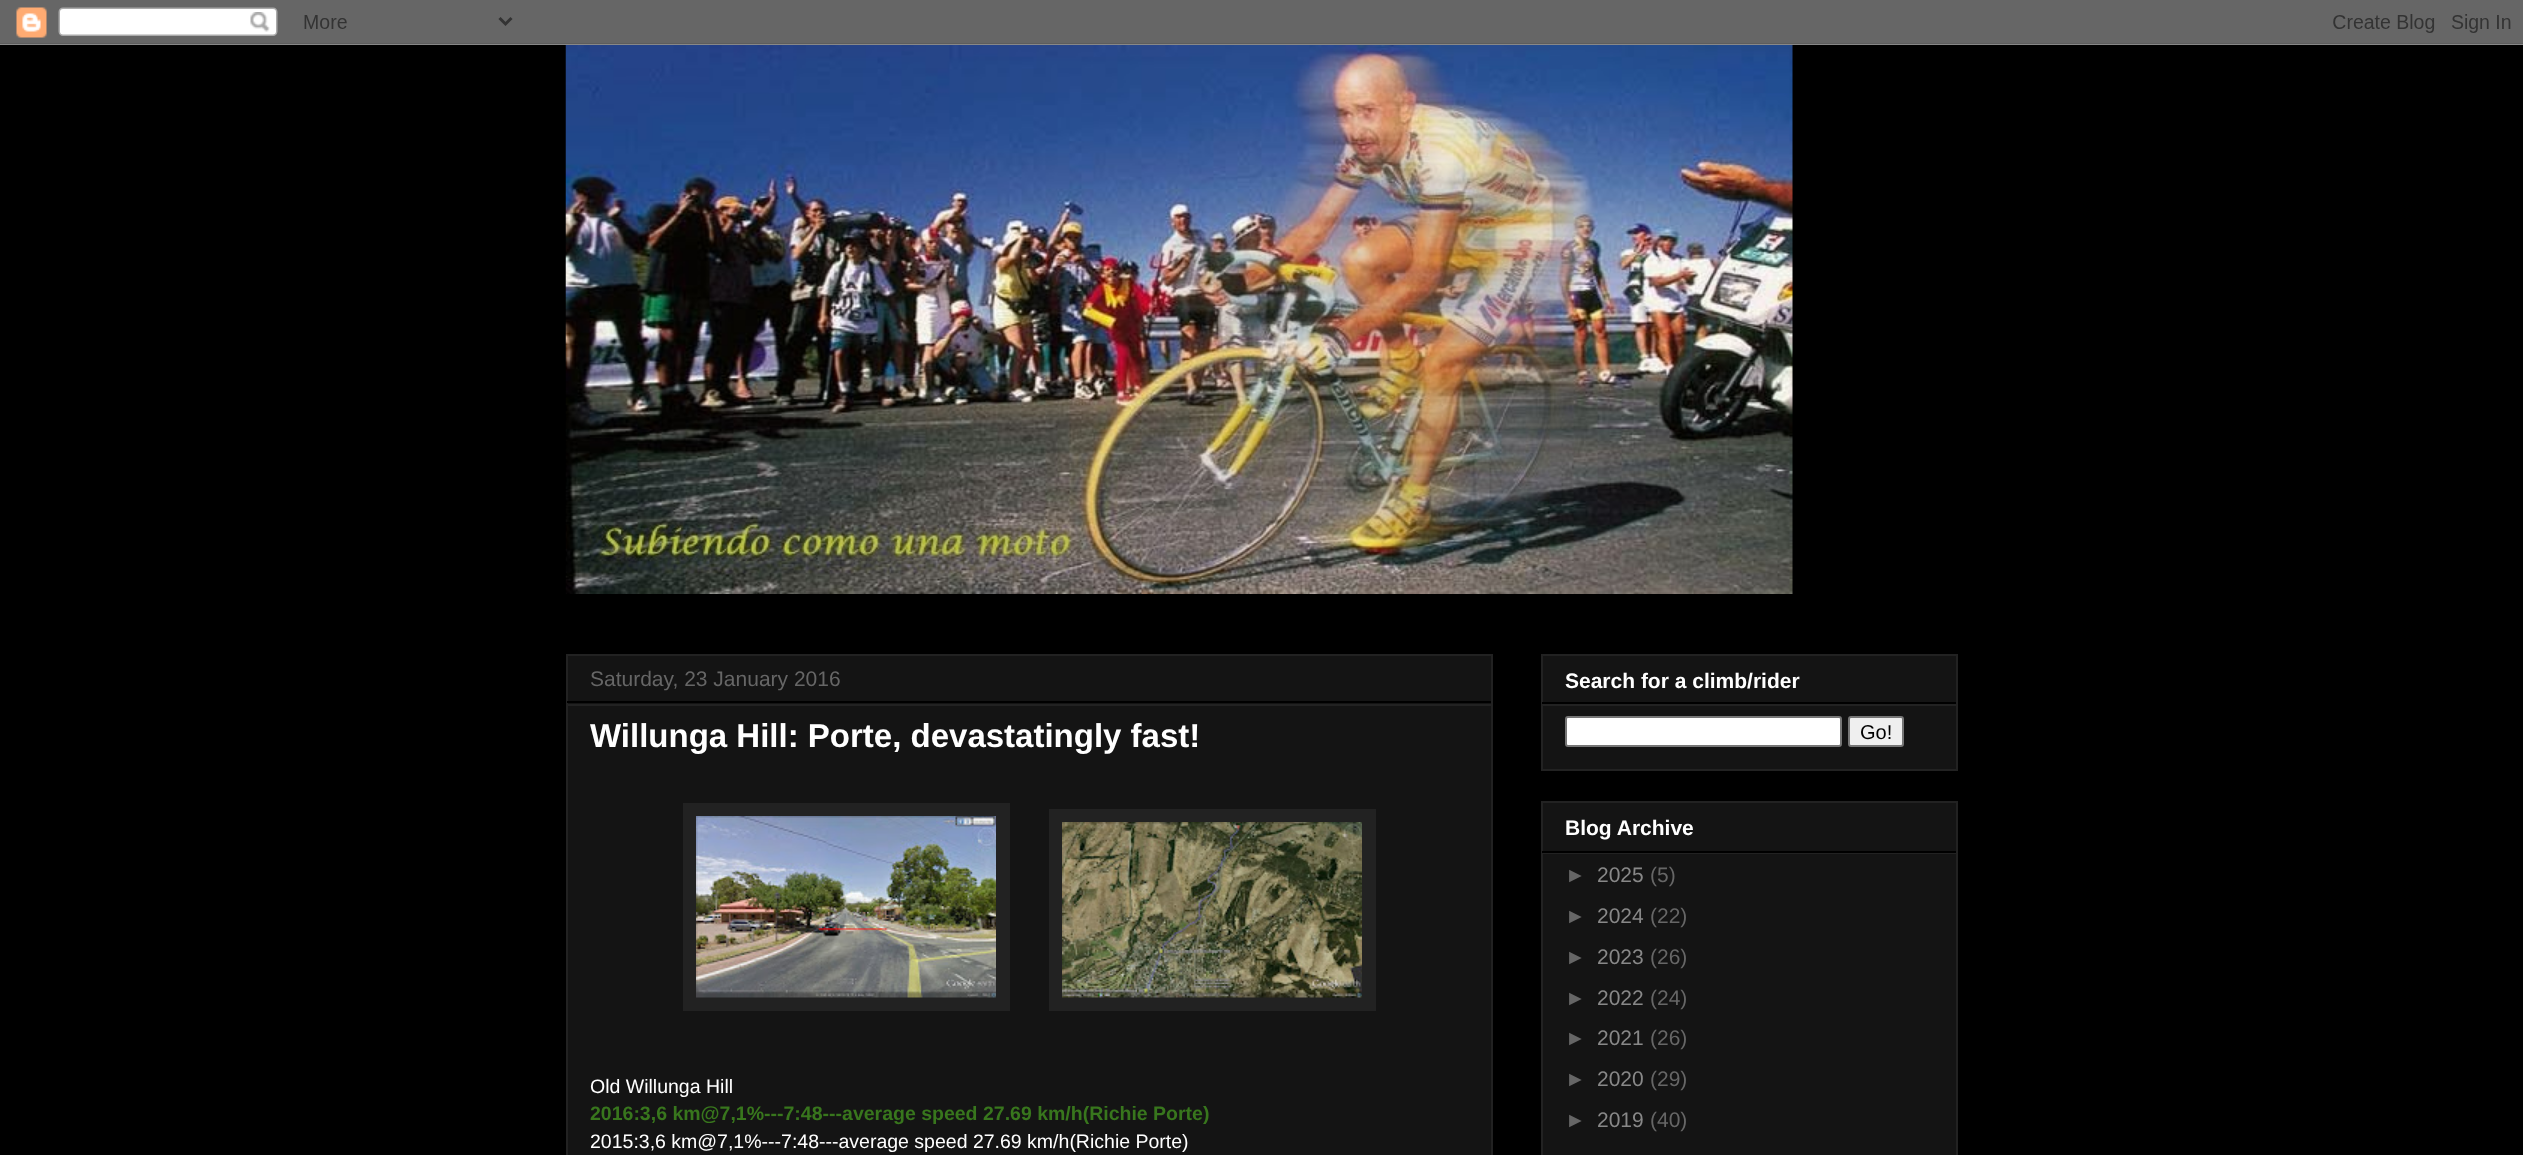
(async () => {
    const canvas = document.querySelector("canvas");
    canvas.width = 2523;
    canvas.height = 1155;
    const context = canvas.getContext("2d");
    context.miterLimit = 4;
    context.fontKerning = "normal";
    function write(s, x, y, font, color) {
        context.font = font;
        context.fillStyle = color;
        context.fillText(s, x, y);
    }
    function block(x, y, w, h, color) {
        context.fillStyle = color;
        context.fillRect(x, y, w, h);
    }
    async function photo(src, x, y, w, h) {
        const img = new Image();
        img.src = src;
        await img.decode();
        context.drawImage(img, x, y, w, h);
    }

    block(0, 0, 2523, 1155, "rgb(0, 0, 0)");
    await photo("media/1.png", 0, 0, 2523, 45);
    await photo("media/2.png", 565, 45, 1228, 549);
    context.fillStyle = "rgb(20, 20, 20)";
    context.beginPath();
    context.rect(567, 655, 925, 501);
    context.fill();
    context.strokeStyle = "rgb(34, 34, 34)";
    context.lineWidth = 2;
    context.stroke();
    block(567, 701, 924, 2, "rgb(0, 0, 0)");
    write("Saturday, 23 January 2016", 590, 686, "21px Liberation Sans", "rgb(102, 102, 102)");
    block(567, 704, 924, 2, "rgb(34, 34, 34)");
    write("Willunga Hill: Porte, devastatingly fast!", 590, 747, "bold 33px Liberation Sans", "rgb(255, 255, 255)");
    block(683, 803, 327, 208, "rgb(34, 34, 34)");
    block(1049, 809, 327, 202, "rgb(34, 34, 34)");
    await photo("media/3.png", 696, 816, 300, 182);
    await photo("media/4.png", 1062, 822, 300, 176);
    write("Old Willunga Hill", 590, 1093, "19.5px Liberation Sans", "rgb(255, 255, 255)");
    write("2016:3,6 km@7,1%---7:48---average speed 27.69 km/h(Richie Porte)", 590, 1120, "bold 19.5px Liberation Sans", "rgb(56, 118, 29)");
    write("2015:3,6 km@7,1%---7:48---average speed 27.69 km/h(Richie Porte)", 590, 1148, "19.5px Liberation Sans", "rgb(255, 255, 255)");
    context.fillStyle = "rgb(20, 20, 20)";
    context.beginPath();
    context.rect(1542, 655, 415, 115);
    context.fill();
    context.stroke();
    block(1542, 702, 414, 2, "rgb(0, 0, 0)");
    write("Search for a climb/rider", 1565, 688, "bold 21px Liberation Sans", "rgb(255, 255, 255)");
    block(1542, 704, 414, 2, "rgb(34, 34, 34)");
    context.fillStyle = "rgb(255, 255, 255)";
    context.beginPath();
    context.roundRect(1566, 717, 275, 29, 2);
    context.fill();
    context.strokeStyle = "rgb(118, 118, 118)";
    context.stroke();
    context.fillStyle = "rgb(239, 239, 239)";
    context.beginPath();
    context.roundRect(1849, 717, 54, 29, 2);
    context.fill();
    context.stroke();
    write("Go!", 1860, 739, "20px Liberation Sans", "rgb(0, 0, 0)");
    context.fillStyle = "rgb(20, 20, 20)";
    context.beginPath();
    context.rect(1542, 802, 415, 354);
    context.fill();
    context.strokeStyle = "rgb(34, 34, 34)";
    context.stroke();
    block(1542, 851, 414, 2, "rgb(0, 0, 0)");
    write("Blog Archive", 1565, 835, "bold 21px Liberation Sans", "rgb(255, 255, 255)");
    block(1542, 853, 414, 1, "rgb(34, 34, 34)");
    write("►", 1565, 882, "21px Liberation Sans", "rgb(102, 102, 102)");
    write("2025", 1597, 882, "21px Liberation Sans", "rgb(136, 136, 136)");
    write("(5)", 1650, 882, "21px Liberation Sans", "rgb(102, 102, 102)");
    write("►", 1565, 923, "21px Liberation Sans", "rgb(102, 102, 102)");
    write("2024", 1597, 923, "21px Liberation Sans", "rgb(136, 136, 136)");
    write("(22)", 1650, 923, "21px Liberation Sans", "rgb(102, 102, 102)");
    write("►", 1565, 964, "21px Liberation Sans", "rgb(102, 102, 102)");
    write("2023", 1597, 964, "21px Liberation Sans", "rgb(136, 136, 136)");
    write("(26)", 1650, 964, "21px Liberation Sans", "rgb(102, 102, 102)");
    write("►", 1565, 1005, "21px Liberation Sans", "rgb(102, 102, 102)");
    write("2022", 1597, 1005, "21px Liberation Sans", "rgb(136, 136, 136)");
    write("(24)", 1650, 1005, "21px Liberation Sans", "rgb(102, 102, 102)");
    write("►", 1565, 1045, "21px Liberation Sans", "rgb(102, 102, 102)");
    write("2021", 1597, 1045, "21px Liberation Sans", "rgb(136, 136, 136)");
    write("(26)", 1650, 1045, "21px Liberation Sans", "rgb(102, 102, 102)");
    write("►", 1565, 1086, "21px Liberation Sans", "rgb(102, 102, 102)");
    write("2020", 1597, 1086, "21px Liberation Sans", "rgb(136, 136, 136)");
    write("(29)", 1650, 1086, "21px Liberation Sans", "rgb(102, 102, 102)");
    write("►", 1565, 1127, "21px Liberation Sans", "rgb(102, 102, 102)");
    write("2019", 1597, 1127, "21px Liberation Sans", "rgb(136, 136, 136)");
    write("(40)", 1650, 1127, "21px Liberation Sans", "rgb(102, 102, 102)");
})();
